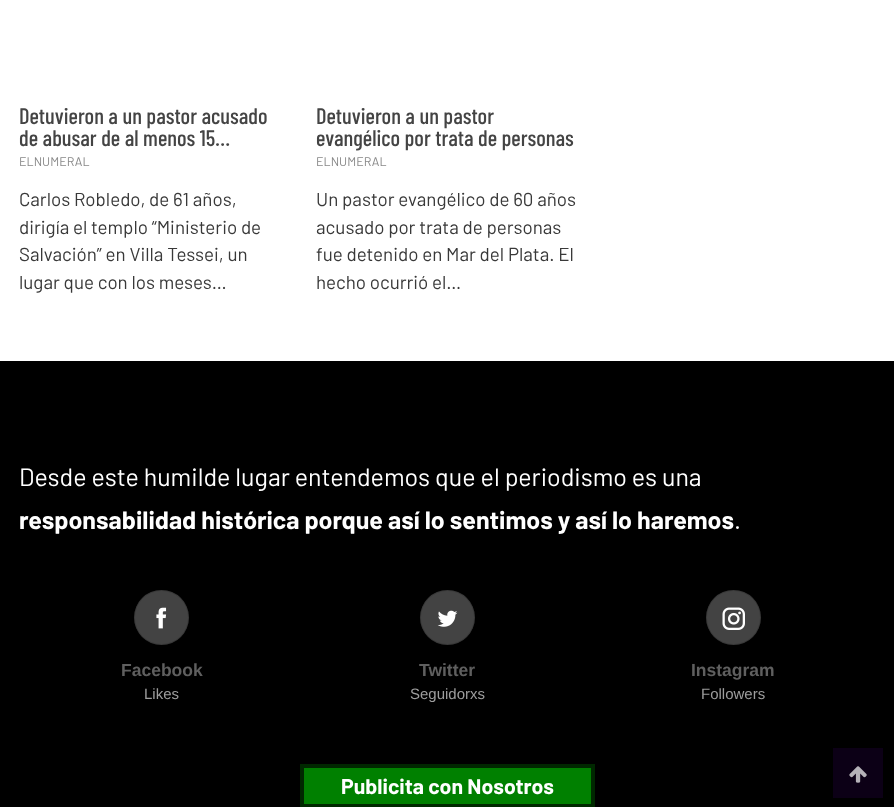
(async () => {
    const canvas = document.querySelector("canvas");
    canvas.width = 894;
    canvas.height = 807;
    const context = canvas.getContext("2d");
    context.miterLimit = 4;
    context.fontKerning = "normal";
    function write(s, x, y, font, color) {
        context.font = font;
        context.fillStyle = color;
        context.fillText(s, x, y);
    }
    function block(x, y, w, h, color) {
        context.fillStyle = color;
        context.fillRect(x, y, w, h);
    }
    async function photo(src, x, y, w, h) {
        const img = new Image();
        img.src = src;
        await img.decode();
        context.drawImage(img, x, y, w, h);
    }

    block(0, 0, 894, 807, "rgb(255, 255, 255)");
    write("Detuvieron a un pastor acusado", 19, 124, "500 22.5px Barlow Condensed", "rgb(68, 68, 68)");
    write("de abusar de al menos 15…", 19, 146, "500 22.5px Barlow Condensed", "rgb(68, 68, 68)");
    write("ELNUMERAL", 19, 166, "12.5px Barlow", "rgb(137, 137, 137)");
    write("Carlos Robledo, de 61 años,", 19, 206, "18.75px Barlow", "rgb(57, 57, 57)");
    write("dirigía el templo “Ministerio de", 19, 234, "18.75px Barlow", "rgb(57, 57, 57)");
    write("Salvación” en Villa Tessei, un", 19, 261, "18.75px Barlow", "rgb(57, 57, 57)");
    write("lugar que con los meses…", 19, 289, "18.75px Barlow", "rgb(57, 57, 57)");
    write("Detuvieron a un pastor", 316, 124, "500 22.5px Barlow Condensed", "rgb(68, 68, 68)");
    write("evangélico por trata de personas", 316, 146, "500 22.5px Barlow Condensed", "rgb(68, 68, 68)");
    write("ELNUMERAL", 316, 166, "12.5px Barlow", "rgb(137, 137, 137)");
    write("Un pastor evangélico de 60 años", 316, 206, "18.75px Barlow", "rgb(57, 57, 57)");
    write("acusado por trata de personas", 316, 234, "18.75px Barlow", "rgb(57, 57, 57)");
    write("fue detenido en Mar del Plata. El", 316, 261, "18.75px Barlow", "rgb(57, 57, 57)");
    write("hecho ocurrió el…", 316, 289, "18.75px Barlow", "rgb(57, 57, 57)");
    block(0, 361, 894, 446, "rgb(0, 0, 0)");
    write("Desde este humilde lugar entendemos que el periodismo es una", 19, 486, "25px Barlow", "rgb(255, 255, 255)");
    write("responsabilidad histórica porque así lo sentimos y así lo haremos", 19, 529, "bold 25px Barlow", "rgb(255, 255, 255)");
    write(".", 734, 529, "25px Barlow", "rgb(255, 255, 255)");
    context.fillStyle = "rgb(67, 67, 67)";
    context.beginPath();
    context.arc(161.5, 617.5, 27.5, 0, Math.PI * 2);
    context.fill();
    context.beginPath();
    context.arc(161.5, 617.5, 27, 0, Math.PI * 2);
    context.strokeStyle = "rgba(0, 0, 0, 0.15)";
    context.stroke();
    await photo("media/1.png", 156, 607, 11, 22);
    write("Facebook", 121, 676, "bold 17.5px Liberation Sans", "rgb(95, 95, 95)");
    write("Likes", 144, 699, "15px Liberation Sans", "rgb(157, 157, 157)");
    context.fillStyle = "rgb(67, 67, 67)";
    context.beginPath();
    context.arc(447.5, 617.5, 27.5, 0, Math.PI * 2);
    context.fill();
    context.beginPath();
    context.arc(447.5, 617.5, 27, 0, Math.PI * 2);
    context.stroke();
    await photo("media/2.png", 437, 610, 21, 17);
    write("Twitter", 419, 676, "bold 17.5px Liberation Sans", "rgb(95, 95, 95)");
    write("Seguidorxs", 410, 699, "15px Liberation Sans", "rgb(157, 157, 157)");
    context.fillStyle = "rgb(67, 67, 67)";
    context.beginPath();
    context.arc(733.5, 617.5, 27.5, 0, Math.PI * 2);
    context.fill();
    context.beginPath();
    context.arc(733.5, 617.5, 27, 0, Math.PI * 2);
    context.stroke();
    await photo("media/3.png", 722, 607, 23, 23);
    write("Instagram", 691, 676, "bold 17.5px Liberation Sans", "rgb(95, 95, 95)");
    write("Followers", 701, 699, "15px Liberation Sans", "rgb(157, 157, 157)");
    context.fillStyle = "rgb(0, 128, 0)";
    context.beginPath();
    context.rect(302, 766, 291, 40);
    context.fill();
    context.strokeStyle = "rgb(0, 40, 0)";
    context.lineWidth = 4;
    context.stroke();
    write("Publicita con Nosotros", 341, 794, "bold 21.25px Barlow", "rgb(255, 255, 255)");
    block(833, 748, 50, 50, "rgb(12, 0, 22)");
    await photo("media/4.png", 849, 766, 18, 17);
})();
